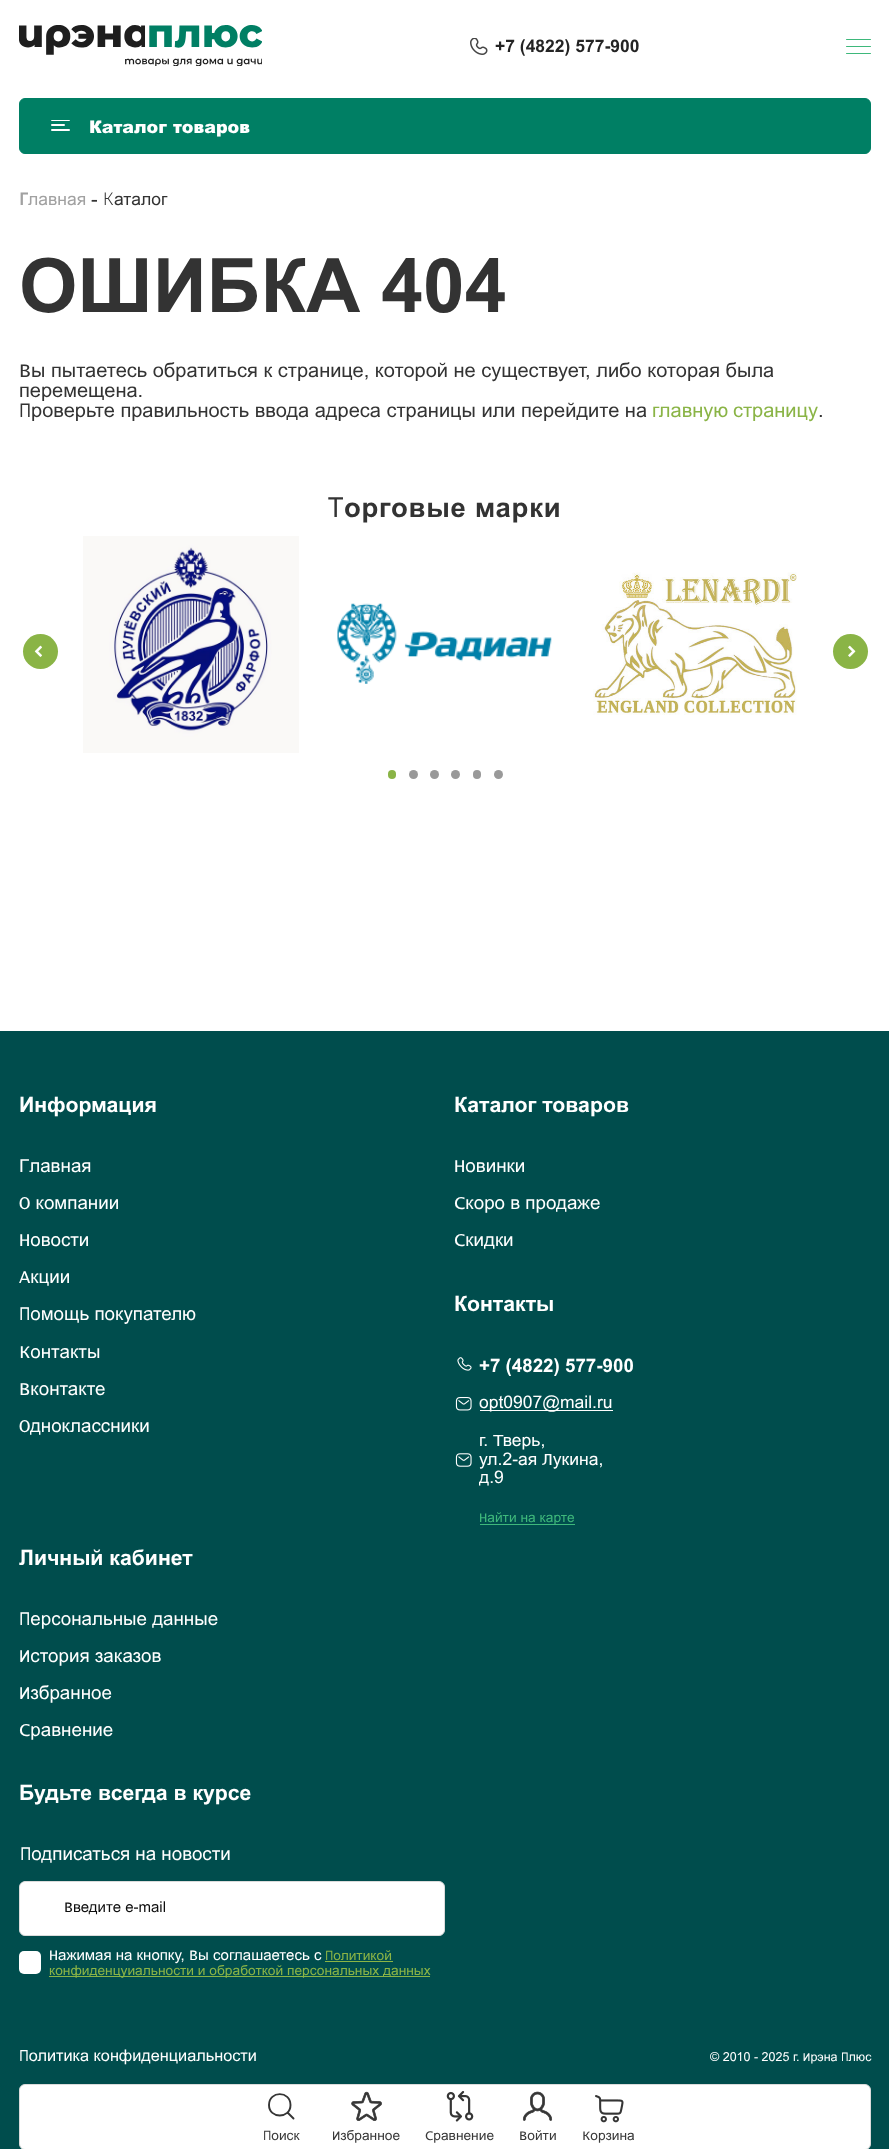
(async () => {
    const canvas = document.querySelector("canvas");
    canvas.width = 889;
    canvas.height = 2149;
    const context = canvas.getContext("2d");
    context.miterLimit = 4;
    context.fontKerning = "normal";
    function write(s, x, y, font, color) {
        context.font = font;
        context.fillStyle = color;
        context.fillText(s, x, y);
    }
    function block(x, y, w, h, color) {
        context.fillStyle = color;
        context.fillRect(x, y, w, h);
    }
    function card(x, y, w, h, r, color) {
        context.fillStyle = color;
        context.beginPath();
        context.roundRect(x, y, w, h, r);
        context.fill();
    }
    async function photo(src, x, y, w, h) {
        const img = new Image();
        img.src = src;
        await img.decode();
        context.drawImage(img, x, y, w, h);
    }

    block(0, 0, 889, 2149, "rgb(255, 255, 255)");
    await photo("media/1.png", 19, 25, 243, 41);
    await photo("media/2.png", 470, 38, 18, 17);
    write("+7 (4822) 577-900", 495, 52, "bold 17.5px Arial", "rgb(36, 36, 36)");
    card(846, 39, 25, 1, 0.5, "rgb(62, 184, 123)");
    card(846, 46, 25, 1, 0.5, "rgb(62, 184, 123)");
    card(846, 53, 25, 1, 0.5, "rgb(62, 184, 123)");
    context.fillStyle = "rgb(0, 127, 100)";
    context.beginPath();
    context.roundRect(19.5, 98.5, 851, 55, 5.5);
    context.fill();
    context.strokeStyle = "rgb(0, 127, 100)";
    context.stroke();
    context.fillStyle = "rgb(255, 255, 255)";
    context.beginPath();
    context.roundRect(51, 120, 19, 1, [0, 0, 1, 1]);
    context.fill();
    card(51, 124, 14, 2, 1, "rgb(255, 255, 255)");
    card(51, 129, 19, 2, 1, "rgb(255, 255, 255)");
    write("Каталог товаров", 89, 133, "900 17.5px Arial", "rgb(255, 255, 255)");
    block(0, 1031, 889, 1118, "rgb(0, 77, 77)");
    context.fillStyle = "rgb(255, 255, 255)";
    context.beginPath();
    context.roundRect(19.5, 2084.5, 851, 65, 5.5);
    context.fill();
    context.strokeStyle = "rgb(219, 219, 219)";
    context.stroke();
    context.beginPath();
    context.moveTo(287.5, 2112.5);
    context.lineTo(293.5, 2118.5);
    context.moveTo(290.5, 2105);
    context.bezierCurveTo(290.5, 2119, 269, 2119, 269, 2105);
    context.bezierCurveTo(269, 2090.5, 290.5, 2090.5, 290.5, 2105);
    context.closePath();
    context.strokeStyle = "rgb(53, 53, 53)";
    context.lineWidth = 1.9;
    context.lineCap = "round";
    context.lineJoin = "round";
    context.stroke();
    write("Поиск", 263, 2140, "13.75px Arial", "rgb(57, 57, 57)");
    await photo("media/3.png", 351, 2091, 31, 30);
    write("Избранное", 332, 2140, "13.75px Arial", "rgb(57, 57, 57)");
    await photo("media/4.png", 446, 2091, 28, 31);
    write("Сравнение", 425, 2140, "13.75px Arial", "rgb(57, 57, 57)");
    await photo("media/5.png", 522, 2091, 31, 30);
    write("Войти", 519, 2140, "13.75px Arial", "rgb(57, 57, 57)");
    await photo("media/6.png", 595, 2095, 29, 28);
    write("Корзина", 582, 2140, "13.75px Arial", "rgb(57, 57, 57)");
    write("Г", 19, 205, "600 17.5px Noto Sans", "rgb(161, 161, 161)");
    write("лавная", 28, 205, "17.5px Arial", "rgb(161, 161, 161)");
    write("-", 91, 206, "20px Arial", "rgb(51, 51, 51)");
    write("К", 103, 205, "300 17.5px Noto Sans", "rgb(51, 51, 51)");
    write("аталог", 114, 205, "17.5px Arial", "rgb(51, 51, 51)");
    write("ОШИБКА 404", 19, 312, "bold 75px Arial", "rgb(51, 51, 51)");
    write("Вы пытаетесь обратиться к странице, которой не существует, либо которая была", 19, 377, "20px Arial", "rgb(51, 51, 51)");
    write("перемещена.", 19, 397, "20px Arial", "rgb(51, 51, 51)");
    write("Проверьте правильность ввода адреса страницы или перейдите на", 19, 417, "20px Arial", "rgb(51, 51, 51)");
    context.wordSpacing = "-1px";
    write("главную страницy", 652, 417, "20px Arial", "rgb(138, 180, 70)");
    context.wordSpacing = "0px";
    write(".", 818, 417, "20px Arial", "rgb(51, 51, 51)");
    context.letterSpacing = "0.75px";
    write("Т", 328, 517, "27.5px Noto Sans", "rgb(51, 51, 51)");
    write("орговые марки", 344, 517, "bold 27.5px Arial", "rgb(51, 51, 51)");
    await photo("media/7.png", 83, 536, 216, 217);
    await photo("media/8.png", 337, 603, 215, 81);
    await photo("media/9.png", 593, 572, 204, 143);
    context.fillStyle = "rgb(138, 180, 70)";
    context.beginPath();
    context.arc(40.5, 651.5, 17.5, 0, Math.PI * 2);
    context.fill();
    await photo("media/10.png", 34, 645, 8, 12);
    context.beginPath();
    context.arc(850.5, 651.5, 17.5, 0, Math.PI * 2);
    context.fill();
    await photo("media/11.png", 848, 645, 8, 12);
    card(388, 770, 8, 9, 4, "rgb(138, 180, 70)");
    context.fillStyle = "rgb(153, 153, 153)";
    context.beginPath();
    context.arc(413.5, 774.5, 4.5, 0, Math.PI * 2);
    context.fill();
    context.beginPath();
    context.arc(434.5, 774.5, 4.5, 0, Math.PI * 2);
    context.fill();
    context.beginPath();
    context.arc(455.5, 774.5, 4.5, 0, Math.PI * 2);
    context.fill();
    card(473, 770, 8, 9, 4, "rgb(153, 153, 153)");
    context.beginPath();
    context.arc(498.5, 774.5, 4.5, 0, Math.PI * 2);
    context.fill();
    context.letterSpacing = "0px";
    write("Информация", 19, 1112, "bold 21.25px Arial", "rgb(255, 255, 255)");
    write("Главная", 19, 1172, "18.75px Arial", "rgb(255, 255, 255)");
    write("О компании", 19, 1209, "18.75px Arial", "rgb(255, 255, 255)");
    write("Новости", 19, 1246, "18.75px Arial", "rgb(255, 255, 255)");
    write("Акции", 19, 1283, "18.75px Arial", "rgb(255, 255, 255)");
    write("Помощь покупателю", 19, 1320, "18.75px Arial", "rgb(255, 255, 255)");
    write("Контакты", 19, 1358, "18.75px Arial", "rgb(255, 255, 255)");
    write("Вконтакте", 19, 1395, "18.75px Arial", "rgb(255, 255, 255)");
    write("Одноклассники", 19, 1432, "18.75px Arial", "rgb(255, 255, 255)");
    write("Каталог товаров", 454, 1112, "bold 21.25px Arial", "rgb(255, 255, 255)");
    write("Новинки", 454, 1172, "18.75px Arial", "rgb(255, 255, 255)");
    write("Скоро в продаже", 454, 1209, "18.75px Arial", "rgb(255, 255, 255)");
    write("Скидки", 454, 1246, "18.75px Arial", "rgb(255, 255, 255)");
    write("Контакты", 454, 1311, "bold 21.25px Arial", "rgb(255, 255, 255)");
    await photo("media/12.png", 457, 1357, 15, 14);
    write("+7 (4822) 577-900", 479, 1372, "bold 18.75px Arial", "rgb(255, 255, 255)");
    await photo("media/13.png", 455, 1397, 17, 14);
    block(480, 1410, 133, 1, "rgb(255, 255, 255)");
    write("opt0907@mail.ru", 479, 1408, "17.5px Arial", "rgb(255, 255, 255)");
    await photo("media/14.png", 455, 1453, 17, 14);
    write("г. Тверь,", 479, 1446, "17.5px Arial", "rgb(255, 255, 255)");
    write("ул.2-ая Лукина,", 479, 1465, "17.5px Arial", "rgb(255, 255, 255)");
    write("д.9", 479, 1483, "17.5px Arial", "rgb(255, 255, 255)");
    block(480, 1524, 95, 1, "rgb(62, 184, 123)");
    write("Найти на карте", 479, 1522, "13.75px Arial", "rgb(62, 184, 123)");
    write("Личный кабинет", 19, 1565, "bold 21.25px Arial", "rgb(255, 255, 255)");
    write("Персональные данные", 19, 1625, "18.75px Arial", "rgb(255, 255, 255)");
    write("История заказов", 19, 1662, "18.75px Arial", "rgb(255, 255, 255)");
    write("Избранное", 19, 1699, "18.75px Arial", "rgb(255, 255, 255)");
    write("Сравнение", 19, 1736, "18.75px Arial", "rgb(255, 255, 255)");
    write("Будьте всегда в курсе", 19, 1800, "bold 21.25px Arial", "rgb(255, 255, 255)");
    write("Подписаться на новости", 20, 1860, "18.75px Arial", "rgb(255, 255, 255)");
    context.beginPath();
    context.roundRect(19.5, 1881.5, 425, 54, 5.5);
    context.fill();
    context.strokeStyle = "rgb(219, 219, 219)";
    context.lineWidth = 1;
    context.lineJoin = "miter";
    context.stroke();
    write("Введите e-mail", 64, 1912, "15px Arial", "rgb(14, 14, 14)");
    card(19, 1951, 22, 23, 5, "rgb(255, 255, 255)");
    write("Нажимая на кнопку, Вы соглашаетесь с", 49, 1960, "15px Arial", "rgb(255, 255, 255)");
    write("Политикой", 325, 1960, "13.75px Arial", "rgb(138, 180, 70)");
    block(325, 1961, 68, 1, "rgb(138, 180, 70)");
    block(49, 1976, 381, 1, "rgb(138, 180, 70)");
    write("конфиденцуиальности и обработкой персональных данных", 49, 1975, "13.75px Arial", "rgb(138, 180, 70)");
    write("Политика конфиденциальности", 19, 2061, "16.25px Arial", "rgb(255, 255, 255)");
    write("© 2010 - 2025 г. Ирэна Плюс", 710, 2061, "12.5px Arial", "rgb(255, 255, 255)");
})();
